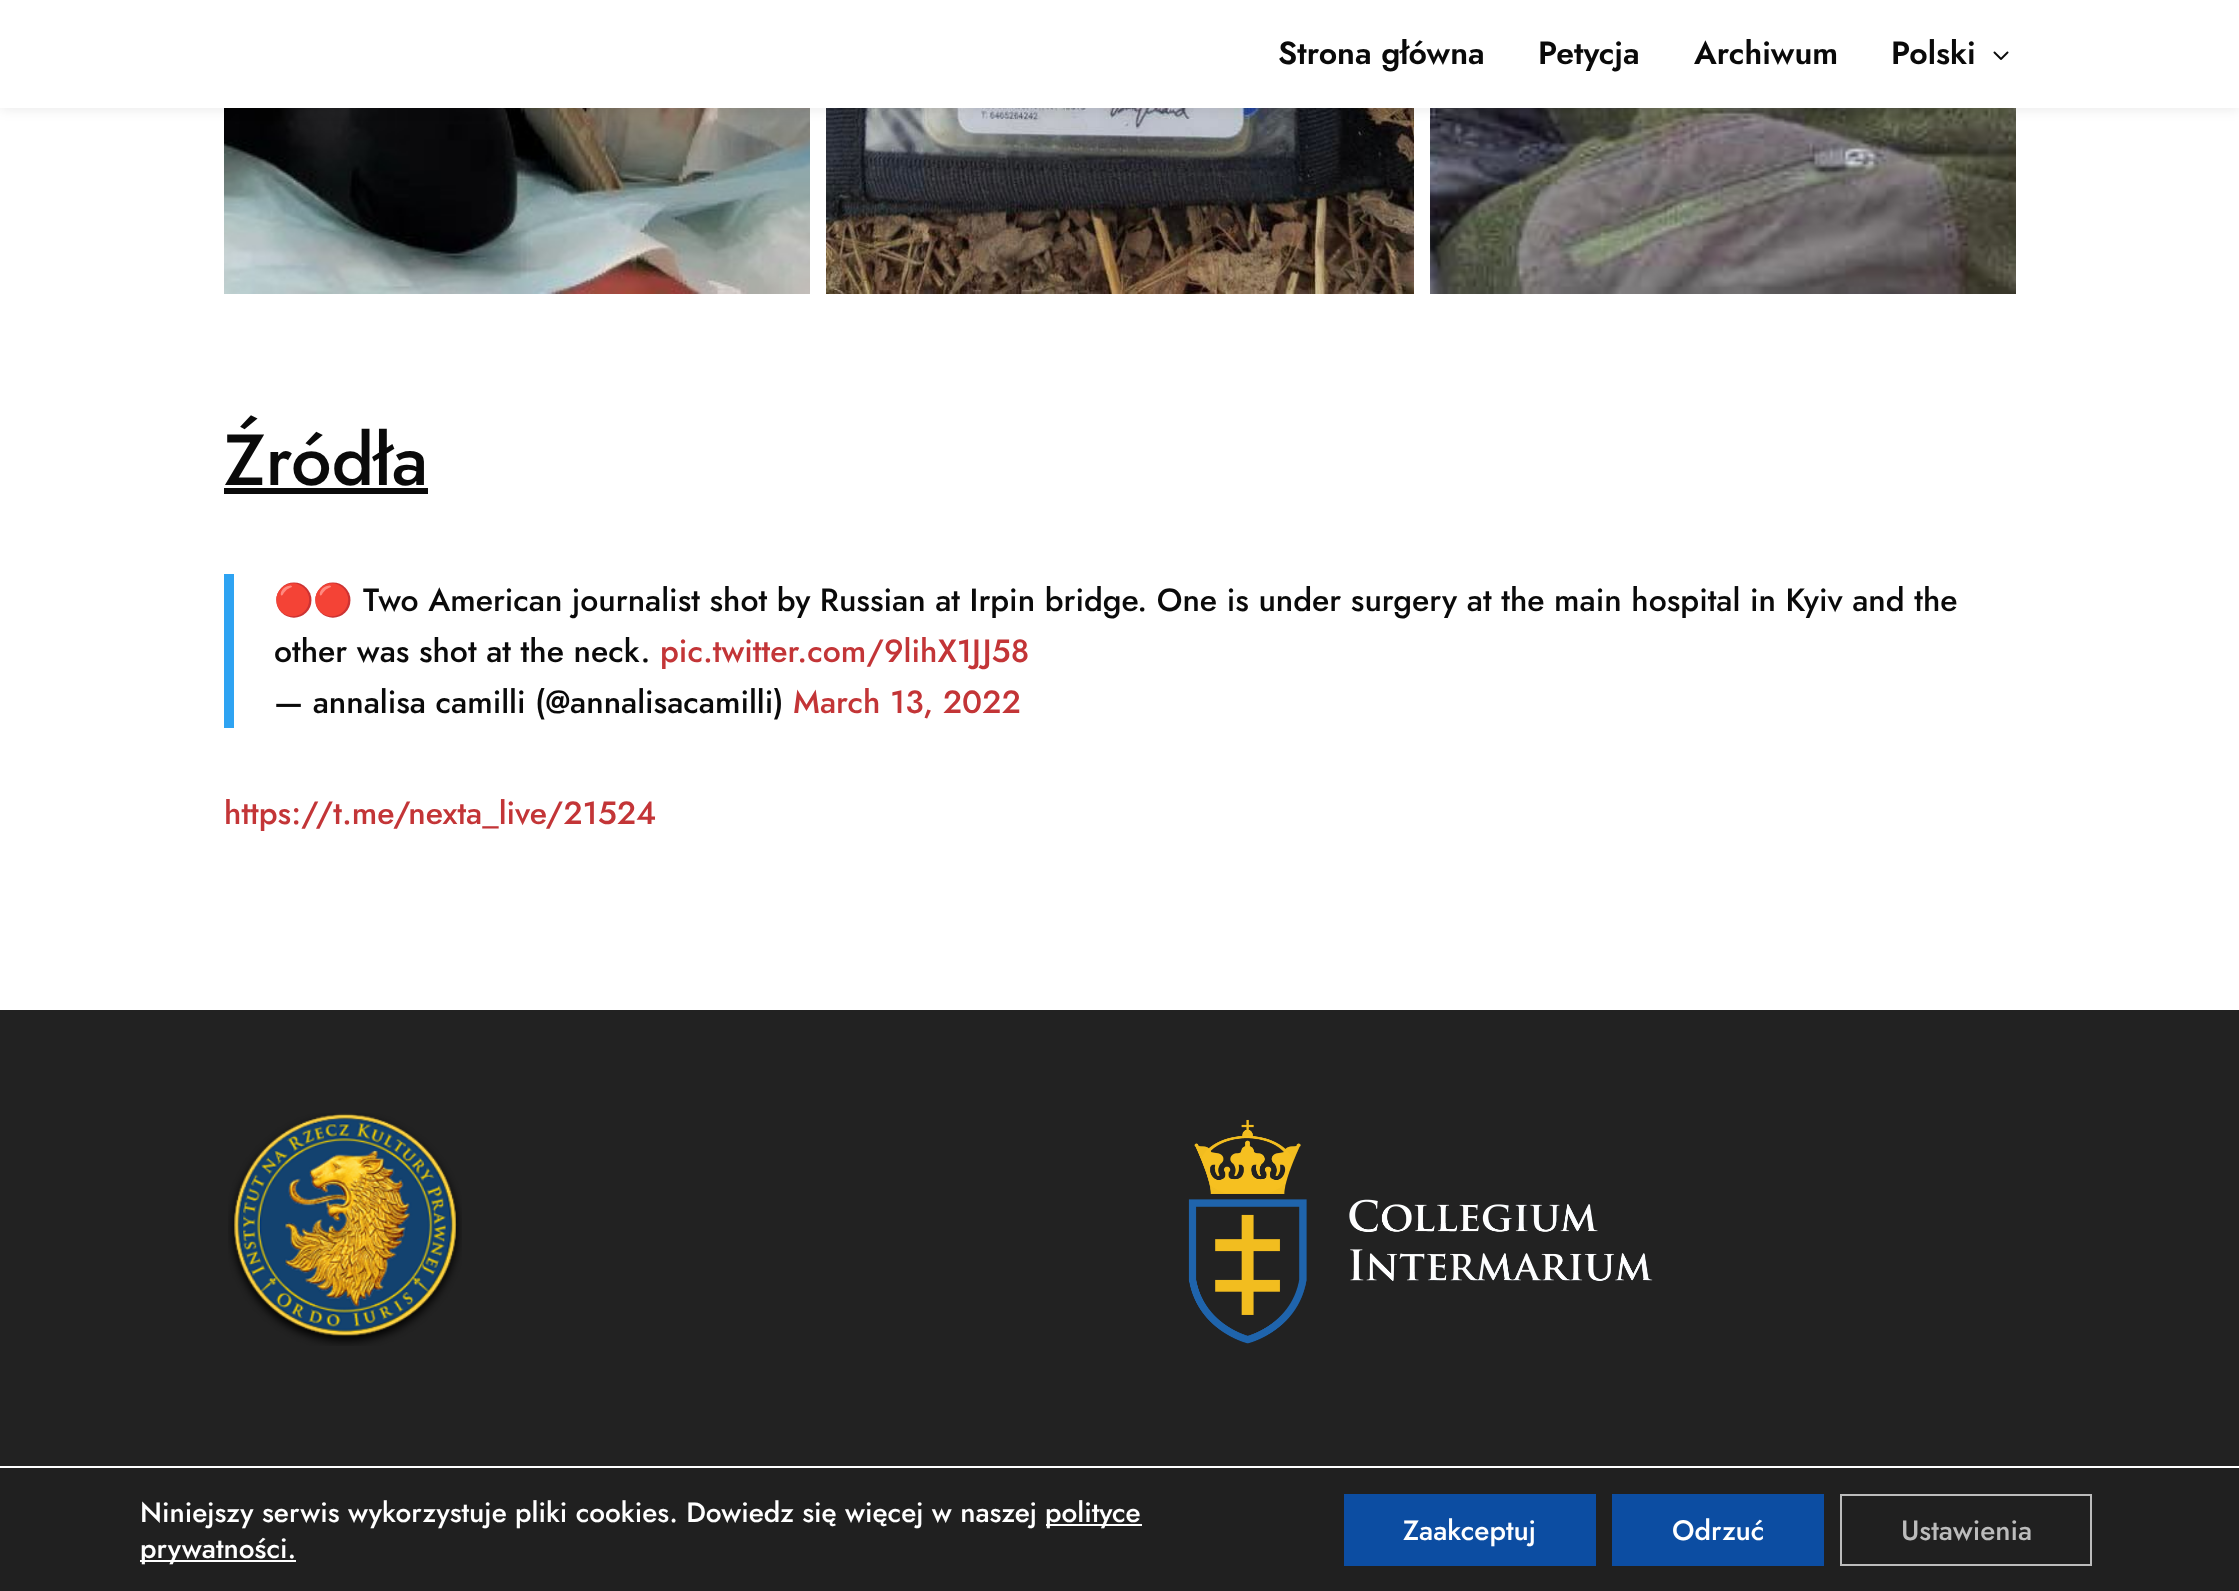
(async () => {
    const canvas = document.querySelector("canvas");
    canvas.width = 2239;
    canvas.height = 1591;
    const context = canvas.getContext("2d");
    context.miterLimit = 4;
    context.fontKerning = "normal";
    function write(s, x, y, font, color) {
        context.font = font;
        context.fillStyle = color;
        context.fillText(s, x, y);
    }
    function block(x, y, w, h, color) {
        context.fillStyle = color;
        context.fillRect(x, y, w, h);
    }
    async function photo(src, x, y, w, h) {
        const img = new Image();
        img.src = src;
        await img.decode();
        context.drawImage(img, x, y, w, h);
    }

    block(0, 0, 2239, 1591, "rgb(255, 255, 255)");
    await photo("media/2.png", 224, 108, 586, 186);
    await photo("media/3.png", 826, 108, 588, 186);
    await photo("media/4.png", 1430, 108, 586, 186);
    context.fillStyle = "rgba(0, 0, 0, 0.1)";
    context.filter = "blur(7px)";
    context.beginPath();
    context.rect(0, 0, 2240, 108);
    context.fill();
    context.filter = "none";
    block(0, 0, 2239, 108, "rgb(255, 255, 255)");
    write("Strona główna", 1278, 64, "600 32px Jost", "rgb(10, 10, 10)");
    write("Petycja", 1538, 64, "600 32px Jost", "rgb(10, 10, 10)");
    write("Archiwum", 1694, 64, "600 32px Jost", "rgb(10, 10, 10)");
    write("Polski", 1891, 64, "600 32px Jost", "rgb(10, 10, 10)");
    await photo("media/1.png", 1993, 51, 16, 9);
    write("Źródła", 224, 485, "500 72px Jost", "rgb(10, 10, 10)");
    block(224, 488, 204, 6, "rgb(10, 10, 10)");
    block(224, 574, 10, 154, "rgb(46, 163, 242)");
    write("🔴🔴", 274, 611, "32px Noto Color Emoji", "rgb(10, 10, 10)");
    write("Two American journalist shot by Russian at Irpin bridge. One is under surgery at the main hospital in Kyiv and the", 363, 611, "500 32px Jost", "rgb(10, 10, 10)");
    write("other was shot at the neck.", 274, 662, "500 32px Jost", "rgb(10, 10, 10)");
    write("pic.twitter.com/9lihX1JJ58", 660, 662, "500 32px Jost", "rgb(195, 53, 55)");
    write("— annalisa camilli (@annalisacamilli)", 274, 713, "500 32px Jost", "rgb(10, 10, 10)");
    write("March 13, 2022", 793, 713, "500 32px Jost", "rgb(195, 53, 55)");
    write("https://t.me/nexta_live/21524", 224, 824, "500 32px Jost", "rgb(195, 53, 55)");
    block(0, 1010, 2239, 456, "rgb(34, 34, 34)");
    await photo("media/5.png", 228, 1113, 234, 233);
    await photo("media/6.png", 1188, 1119, 465, 225);
    block(0, 1468, 2239, 123, "rgb(32, 32, 32)");
    write("Niniejszy serwis wykorzystuje pliki cookies. Dowiedz się więcej w naszej", 140, 1522, "500 28px Jost", "rgb(255, 255, 255)");
    block(1046, 1524, 96, 2, "rgb(255, 255, 255)");
    write("polityce", 1045, 1522, "500 28px Jost", "rgb(255, 255, 255)");
    block(140, 1560, 156, 2, "rgb(255, 255, 255)");
    write("prywatności.", 140, 1558, "500 28px Jost", "rgb(255, 255, 255)");
    block(1344, 1494, 252, 72, "rgb(12, 77, 162)");
    write("Zaakceptuj", 1403, 1540, "500 28px Jost", "rgb(255, 255, 255)");
    block(1612, 1494, 212, 72, "rgb(12, 77, 162)");
    write("Odrzuć", 1672, 1540, "500 28px Jost", "rgb(255, 255, 255)");
    context.strokeStyle = "rgb(188, 188, 188)";
    context.lineWidth = 2;
    context.strokeRect(1841, 1495, 250, 70);
    write("Ustawienia", 1901, 1540, "500 28px Jost", "rgb(188, 188, 188)");
})();
